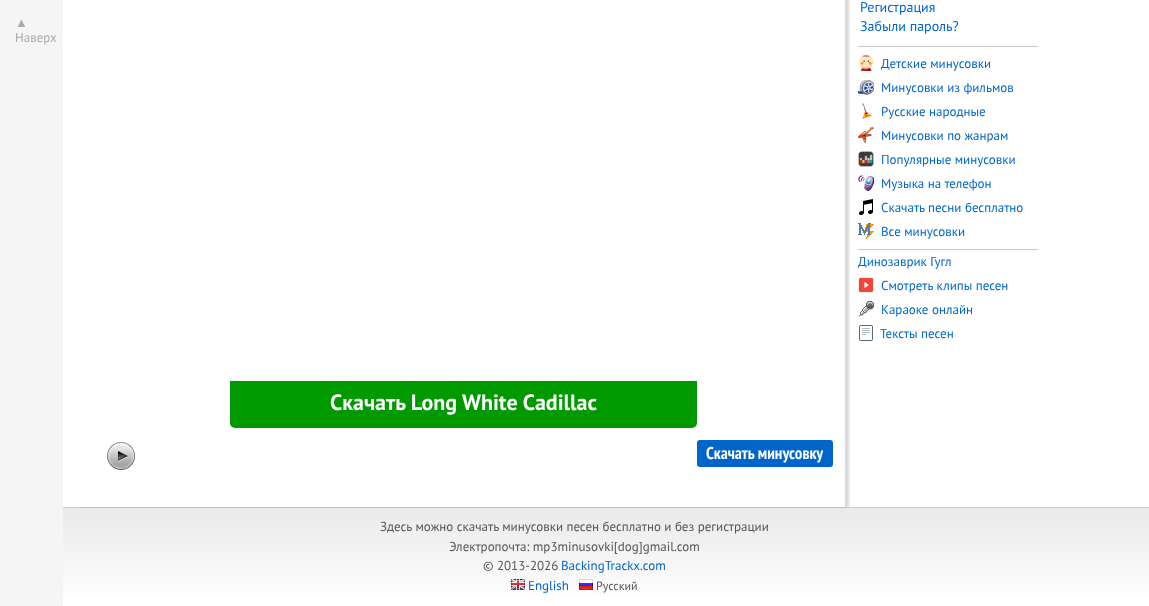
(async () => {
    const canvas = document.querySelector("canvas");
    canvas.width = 1149;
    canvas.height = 606;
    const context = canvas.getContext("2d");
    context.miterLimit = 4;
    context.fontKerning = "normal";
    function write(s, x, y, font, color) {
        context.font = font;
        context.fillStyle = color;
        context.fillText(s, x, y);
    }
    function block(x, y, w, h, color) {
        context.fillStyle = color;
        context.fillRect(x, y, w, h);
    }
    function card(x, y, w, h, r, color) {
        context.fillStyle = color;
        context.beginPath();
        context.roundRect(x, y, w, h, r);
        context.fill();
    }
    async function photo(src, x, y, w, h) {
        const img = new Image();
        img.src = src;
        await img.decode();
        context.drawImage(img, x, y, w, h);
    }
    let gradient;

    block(0, 0, 1149, 606, "rgb(255, 255, 255)");
    block(0, 0, 63, 606, "rgb(245, 245, 245)");
    write("▲", 15, 27, "13px Liberation Serif", "rgb(170, 170, 170)");
    write("Наверх", 15, 42, "13px PT Sans", "rgb(170, 170, 170)");
    write("Регистрация", 860, 12, "14px PT Sans", "rgb(0, 102, 204)");
    write("Забыли пароль?", 860, 31, "14px PT Sans", "rgb(0, 102, 204)");
    block(858, 46, 180, 1, "rgb(204, 204, 204)");
    await photo("media/1.png", 859, 55, 14, 16);
    write("Детские минусовки", 881, 68, "13px PT Sans", "rgb(0, 102, 204)");
    await photo("media/2.png", 858, 79, 16, 16);
    write("Минусовки из фильмов", 881, 92, "13px PT Sans", "rgb(0, 102, 204)");
    await photo("media/3.png", 862, 103, 10, 16);
    write("Русские народные", 881, 116, "13px PT Sans", "rgb(0, 102, 204)");
    await photo("media/4.png", 858, 127, 16, 16);
    write("Минусовки по жанрам", 881, 140, "13px PT Sans", "rgb(0, 102, 204)");
    await photo("media/5.png", 858, 151, 16, 16);
    write("Популярные минусовки", 881, 164, "13px PT Sans", "rgb(0, 102, 204)");
    await photo("media/6.png", 858, 175, 16, 16);
    write("Музыка на телефон", 881, 188, "13px PT Sans", "rgb(0, 102, 204)");
    await photo("media/7.png", 859, 199, 14, 16);
    write("Скачать песни бесплатно", 881, 212, "13px PT Sans", "rgb(0, 102, 204)");
    await photo("media/8.png", 858, 223, 16, 16);
    write("Все минусовки", 881, 236, "13px PT Sans", "rgb(0, 102, 204)");
    block(858, 249, 180, 1, "rgb(204, 204, 204)");
    write("Динозаврик Гугл", 858, 266, "13px PT Sans", "rgb(0, 102, 204)");
    await photo("media/9.png", 858, 277, 16, 16);
    write("Смотреть клипы песен", 881, 290, "13px PT Sans", "rgb(0, 102, 204)");
    await photo("media/10.png", 859, 301, 15, 16);
    write("Караоке онлайн", 881, 314, "13px PT Sans", "rgb(0, 102, 204)");
    await photo("media/11.png", 859, 325, 14, 16);
    write("Тексты песен", 880, 338, "13px PT Sans", "rgb(0, 102, 204)");
    gradient = context.createLinearGradient(575, 508, 575, 606);
    gradient.addColorStop(0, "rgb(234, 234, 234)");
    gradient.addColorStop(1, "rgb(255, 255, 255)");
    context.fillStyle = gradient;
    context.fillRect(63, 508, 1086, 86);
    block(63, 507, 1086, 1, "rgb(204, 204, 204)");
    context.save();
    context.beginPath();
    context.moveTo(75, 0);
    context.lineTo(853, 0);
    context.lineTo(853, 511);
    context.lineTo(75, 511);
    context.closePath();
    context.moveTo(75, -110);
    context.lineTo(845, -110);
    context.lineTo(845, 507);
    context.lineTo(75, 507);
    context.closePath();
    context.clip("evenodd");
    context.fillStyle = "rgba(0, 0, 0, 0.15)";
    context.filter = "blur(1px)";
    context.beginPath();
    context.rect(79, -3, 770, 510);
    context.fill();
    context.filter = "none";
    context.restore();
    context.fillStyle = "rgb(0, 153, 0)";
    context.beginPath();
    context.roundRect(230, 381, 467, 47, [0, 0, 5, 5]);
    context.fill();
    write("Скачать Long White Cadillac", 330, 410, "bold 22px PT Sans", "rgb(255, 255, 255)");
    await photo("media/12.png", 107, 442, 28, 28);
    card(697, 440, 136, 27, 3, "rgb(0, 102, 204)");
    write("Скачать минусовку", 706, 459, "bold 17px PT Sans Narrow", "rgb(255, 255, 255)");
    write("Здесь можно скачать минусовки песен бесплатно и без регистрации", 380, 531, "13px PT Sans", "rgb(85, 85, 85)");
    write("Электропочта: mp3minusovki[dog]gmail.com", 449, 551, "13px PT Sans", "rgb(85, 85, 85)");
    write("© 2013-2026", 483, 570, "13px PT Sans", "rgb(85, 85, 85)");
    write("BackingTrackx.com", 561, 570, "13px PT Sans", "rgb(0, 102, 204)");
    await photo("media/13.png", 511, 579, 14, 11);
    write("English", 528, 590, "13px PT Sans", "rgb(0, 102, 204)");
    await photo("media/14.png", 579, 579, 14, 11);
    write("Русский", 596, 590, "12px PT Sans", "rgb(85, 85, 85)");
})();
